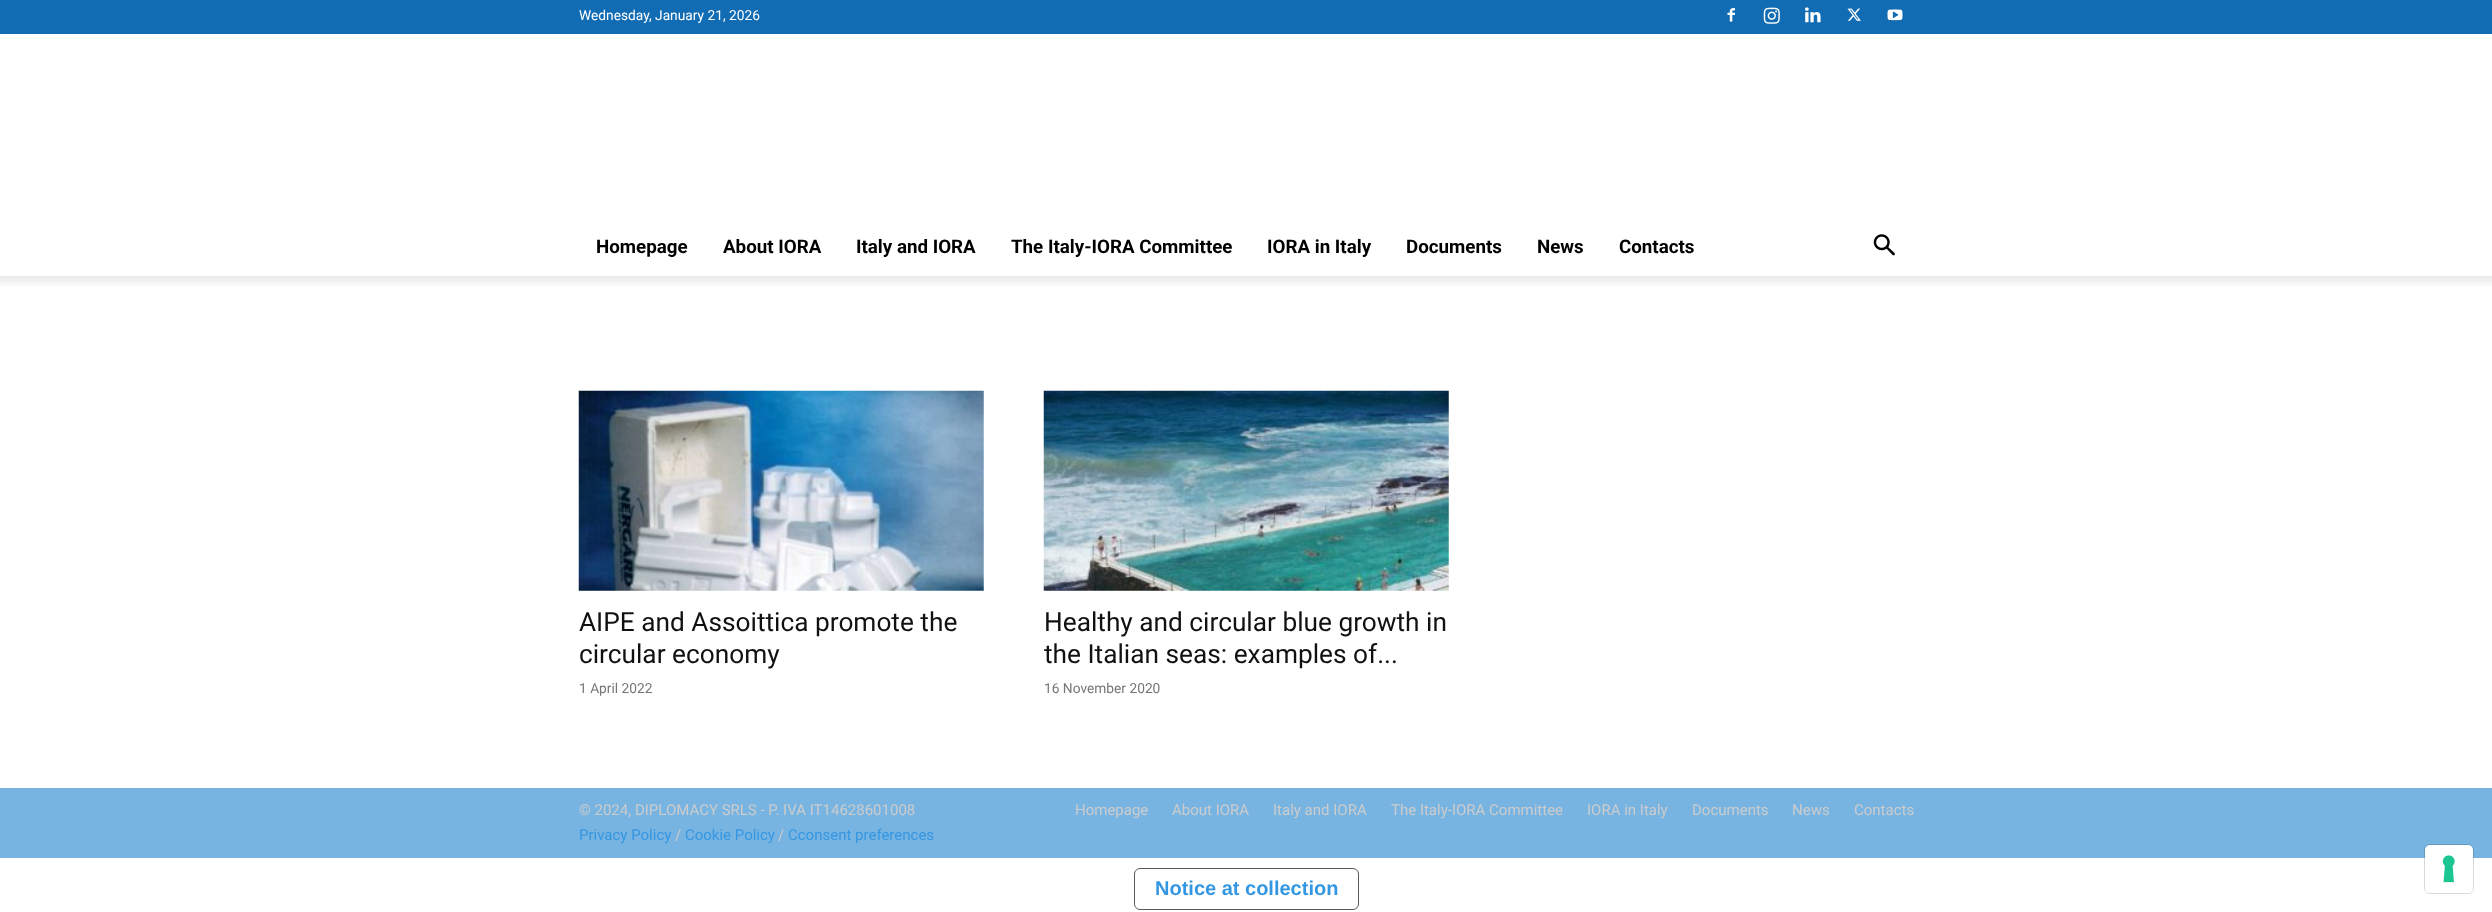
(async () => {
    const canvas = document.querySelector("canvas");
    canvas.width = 2492;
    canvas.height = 912;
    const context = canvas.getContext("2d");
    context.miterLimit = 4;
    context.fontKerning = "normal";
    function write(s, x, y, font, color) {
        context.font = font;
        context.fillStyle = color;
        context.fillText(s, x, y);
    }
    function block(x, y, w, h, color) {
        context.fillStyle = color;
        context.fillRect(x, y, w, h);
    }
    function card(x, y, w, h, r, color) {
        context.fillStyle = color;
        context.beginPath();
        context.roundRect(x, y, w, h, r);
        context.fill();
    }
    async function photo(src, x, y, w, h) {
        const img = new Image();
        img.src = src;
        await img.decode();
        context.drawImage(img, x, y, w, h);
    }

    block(0, 0, 2492, 912, "rgb(255, 255, 255)");
    block(0, 0, 2492, 34, "rgb(18, 108, 179)");
    write("Wednesday, January 21, 2026", 579, 20, "13.75px Roboto", "rgb(255, 255, 255)");
    await photo("media/1.png", 1727, 8, 8, 14);
    await photo("media/2.png", 1763, 7, 17, 17);
    await photo("media/3.png", 1805, 7, 16, 16);
    await photo("media/4.png", 1847, 8, 14, 13);
    await photo("media/5.png", 1887, 9, 16, 12);
    write("Homepage", 596, 253, "bold 18.75px Roboto", "rgb(0, 0, 0)");
    write("About IORA", 723, 253, "bold 18.75px Roboto", "rgb(0, 0, 0)");
    write("Italy and IORA", 856, 253, "bold 18.75px Roboto", "rgb(0, 0, 0)");
    write("The Italy-IORA Committee", 1011, 253, "bold 18.75px Roboto", "rgb(0, 0, 0)");
    write("IORA in Italy", 1267, 253, "bold 18.75px Roboto", "rgb(0, 0, 0)");
    write("Documents", 1406, 253, "bold 18.75px Roboto", "rgb(0, 0, 0)");
    write("News", 1537, 253, "bold 18.75px Roboto", "rgb(0, 0, 0)");
    write("Contacts", 1619, 253, "bold 18.75px Roboto", "rgb(0, 0, 0)");
    await photo("media/6.png", 1873, 234, 22, 22);
    await photo("media/7.png", 0, 276, 2492, 10);
    await photo("media/8.png", 578, 390, 406, 201);
    write("AIPE and Assoittica promote the", 579, 631, "26.25px Roboto", "rgb(17, 17, 17)");
    write("circular economy", 579, 663, "26.25px Roboto", "rgb(17, 17, 17)");
    write("1 April 2022", 579, 693, "13.75px Roboto", "rgb(118, 118, 118)");
    await photo("media/9.png", 1043, 390, 406, 201);
    write("Healthy and circular blue growth in", 1044, 631, "26.25px Roboto", "rgb(17, 17, 17)");
    write("the Italian seas: examples of...", 1044, 663, "26.25px Roboto", "rgb(17, 17, 17)");
    write("16 November 2020", 1044, 693, "13.75px Roboto", "rgb(118, 118, 118)");
    block(0, 788, 2492, 70, "rgb(120, 180, 226)");
    write("© 2024, DIPLOMACY SRLS - P. IVA IT14628601008", 579, 815, "15px Roboto", "rgb(204, 204, 204)");
    write("Privacy Policy", 579, 840, "15px Roboto", "rgb(52, 151, 226)");
    write("/", 675, 840, "15px Roboto", "rgb(204, 204, 204)");
    write("Cookie Policy", 685, 840, "15px Roboto", "rgb(52, 151, 226)");
    write("/", 778, 840, "15px Roboto", "rgb(204, 204, 204)");
    write("Cconsent preferences", 788, 840, "15px Roboto", "rgb(52, 151, 226)");
    write("Homepage", 1075, 815, "15px Roboto", "rgb(204, 204, 204)");
    write("About IORA", 1172, 815, "15px Roboto", "rgb(204, 204, 204)");
    write("Italy and IORA", 1273, 815, "15px Roboto", "rgb(204, 204, 204)");
    write("The Italy-IORA Committee", 1391, 815, "15px Roboto", "rgb(204, 204, 204)");
    write("IORA in Italy", 1587, 815, "15px Roboto", "rgb(204, 204, 204)");
    write("Documents", 1692, 815, "15px Roboto", "rgb(204, 204, 204)");
    write("News", 1792, 815, "15px Roboto", "rgb(204, 204, 204)");
    write("Contacts", 1854, 815, "15px Roboto", "rgb(204, 204, 204)");
    context.beginPath();
    context.roundRect(1134.5, 868.5, 224, 41, 5.5);
    context.strokeStyle = "rgb(89, 89, 89)";
    context.stroke();
    write("Notice at collection", 1155, 895, "bold 20px Liberation Sans", "rgb(52, 151, 226)");
    context.beginPath();
    context.roundRect(2424.5, 844.5, 49, 49, 5.5);
    context.strokeStyle = "rgba(0, 0, 0, 0.15)";
    context.stroke();
    card(2425, 845, 48, 48, 5, "rgb(255, 255, 255)");
    await photo("media/10.png", 2442, 855, 13, 28);
})();
